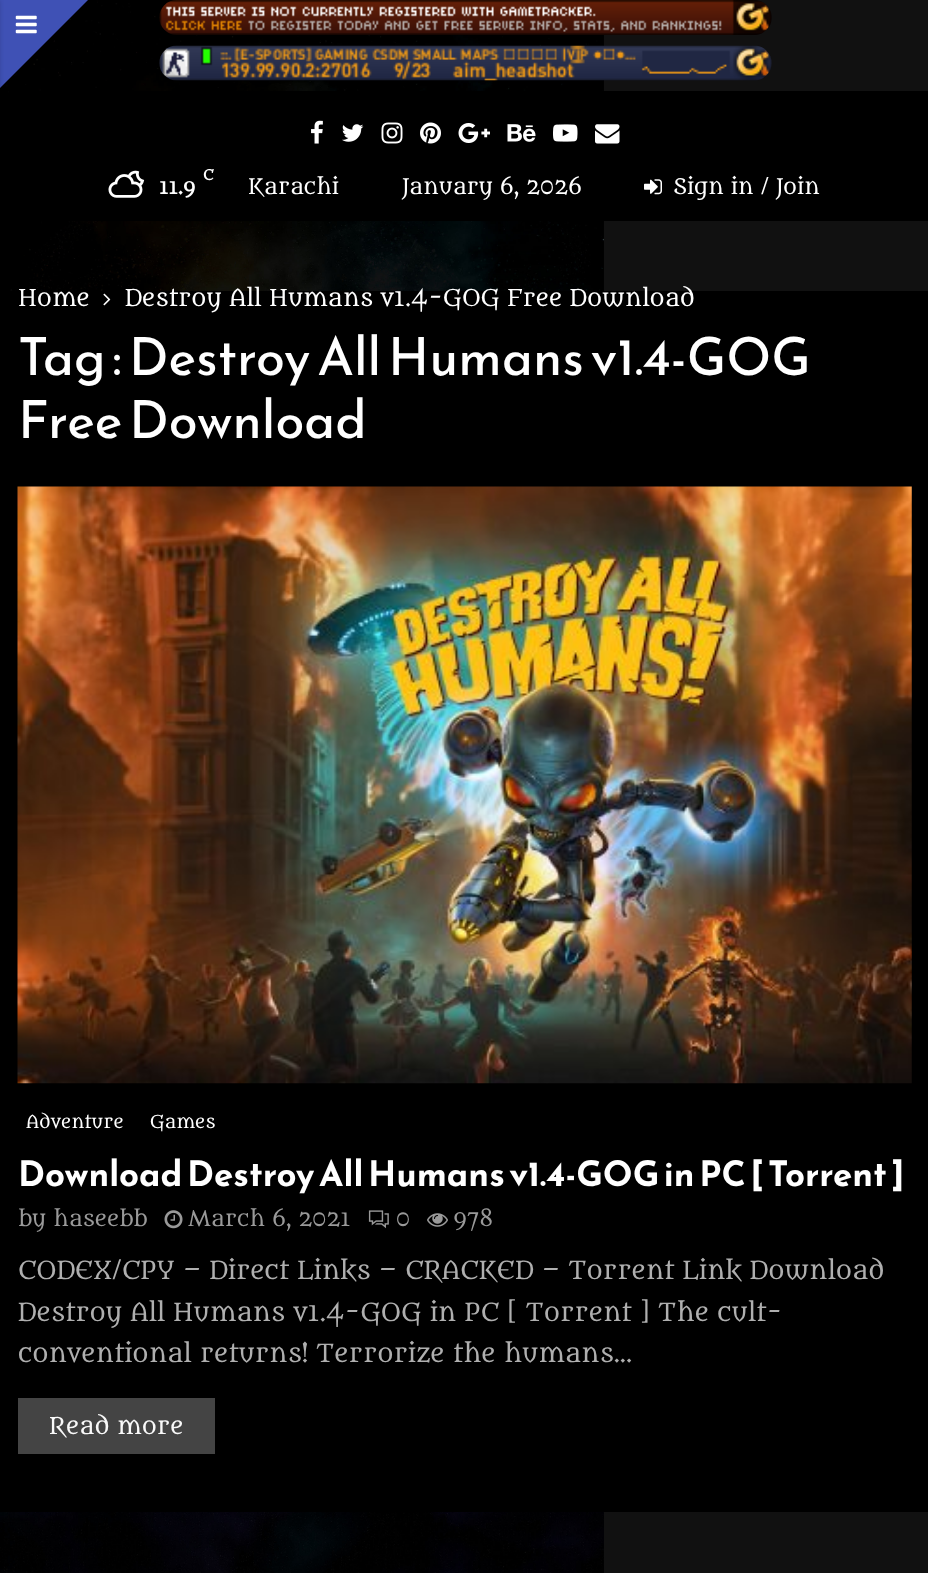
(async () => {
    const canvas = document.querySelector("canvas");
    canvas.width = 928;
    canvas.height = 1573;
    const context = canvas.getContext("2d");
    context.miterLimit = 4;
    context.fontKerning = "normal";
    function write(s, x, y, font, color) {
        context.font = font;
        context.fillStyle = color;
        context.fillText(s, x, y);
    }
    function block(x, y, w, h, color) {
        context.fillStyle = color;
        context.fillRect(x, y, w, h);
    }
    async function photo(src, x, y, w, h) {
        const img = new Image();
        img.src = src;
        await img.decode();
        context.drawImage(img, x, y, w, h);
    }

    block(0, 0, 928, 1573, "rgb(17, 17, 17)");
    await photo("media/1.png", 0, 0, 604, 1573);
    context.fillStyle = "rgb(63, 81, 181)";
    context.beginPath();
    context.moveTo(0, 0);
    context.lineTo(88, 0);
    context.lineTo(0, 88);
    context.closePath();
    context.fill();
    await photo("media/2.png", 15, 15, 22, 19);
    block(0, 291, 928, 1221, "rgb(0, 0, 0)");
    context.fillStyle = "rgba(0, 0, 0, 0.15)";
    context.filter = "blur(2px)";
    context.beginPath();
    context.rect(-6, 0, 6, 1573);
    context.fill();
    context.filter = "none";
    await photo("media/3.png", 159, 0, 613, 35);
    await photo("media/4.png", 159, 45, 613, 36);
    block(9, 91, 919, 130, "rgb(0, 0, 0)");
    await photo("media/5.png", 311, 120, 12, 24);
    await photo("media/6.png", 342, 124, 22, 18);
    await photo("media/7.png", 381, 122, 22, 22);
    await photo("media/8.png", 420, 122, 21, 22);
    await photo("media/9.png", 458, 123, 32, 20);
    await photo("media/10.png", 507, 124, 29, 18);
    await photo("media/11.png", 553, 124, 25, 18);
    await photo("media/12.png", 595, 124, 25, 20);
    await photo("media/13.png", 108, 170, 37, 28);
    write("C", 203, 180, "bold 14px Metamorphous", "rgb(255, 255, 255)");
    write("11.9", 159, 194, "bold 19px Metamorphous", "rgb(255, 255, 255)");
    write("Karachi", 248, 194, "21px Metamorphous", "rgb(255, 255, 255)");
    write("January 6, 2026", 402, 194, "21px Metamorphous", "rgb(255, 255, 255)");
    await photo("media/14.png", 644, 179, 18, 16);
    write("Sign in / Join", 673, 194, "21px Metamorphous", "rgb(255, 255, 255)");
    write("Home", 18, 306, "22.75px Metamorphous", "rgb(255, 255, 255)");
    await photo("media/15.png", 103, 293, 8, 13);
    write("Destroy All Humans v1.4-GOG Free Download", 125, 306, "22.75px Metamorphous", "rgb(255, 255, 255)");
    write("Tag : Destroy All Humans v1.4-GOG", 18, 375, "52.5px Reem Kufi", "rgb(255, 255, 255)");
    write("Free Download", 18, 438, "52.5px Reem Kufi", "rgb(255, 255, 255)");
    await photo("media/16.png", 17, 486, 895, 598);
    write("Adventure", 26, 1128, "17.5px Metamorphous", "rgb(255, 255, 255)");
    write("Games", 150, 1128, "17.5px Metamorphous", "rgb(255, 255, 255)");
    write("Download Destroy All Humans v1.4-GOG in PC [ Torrent ]", 18, 1186, "bold 35px Reem Kufi", "rgb(255, 255, 255)");
    write("by haseebb", 18, 1226, "21px Metamorphous", "rgb(153, 153, 153)");
    await photo("media/17.png", 164, 1210, 19, 19);
    write("March 6, 2021", 188, 1226, "21px Metamorphous", "rgb(153, 153, 153)");
    await photo("media/18.png", 368, 1210, 21, 19);
    write("0", 396, 1226, "21px Metamorphous", "rgb(153, 153, 153)");
    await photo("media/19.png", 427, 1213, 21, 14);
    write("978", 453, 1226, "21px Metamorphous", "rgb(153, 153, 153)");
    write("CODEX/CPY – Direct Links – CRACKED – Torrent Link Download", 18, 1279, "24.5px Metamorphous", "rgb(175, 175, 175)");
    write("Destroy All Humans v1.4-GOG in PC [ Torrent ] The cult-", 18, 1321, "24.5px Metamorphous", "rgb(175, 175, 175)");
    write("conventional returns! Terrorize the humans...", 18, 1362, "24.5px Metamorphous", "rgb(175, 175, 175)");
    block(18, 1398, 197, 56, "rgb(68, 68, 68)");
    write("Read more", 49, 1434, "22.75px Metamorphous", "rgb(249, 249, 249)");
})();
